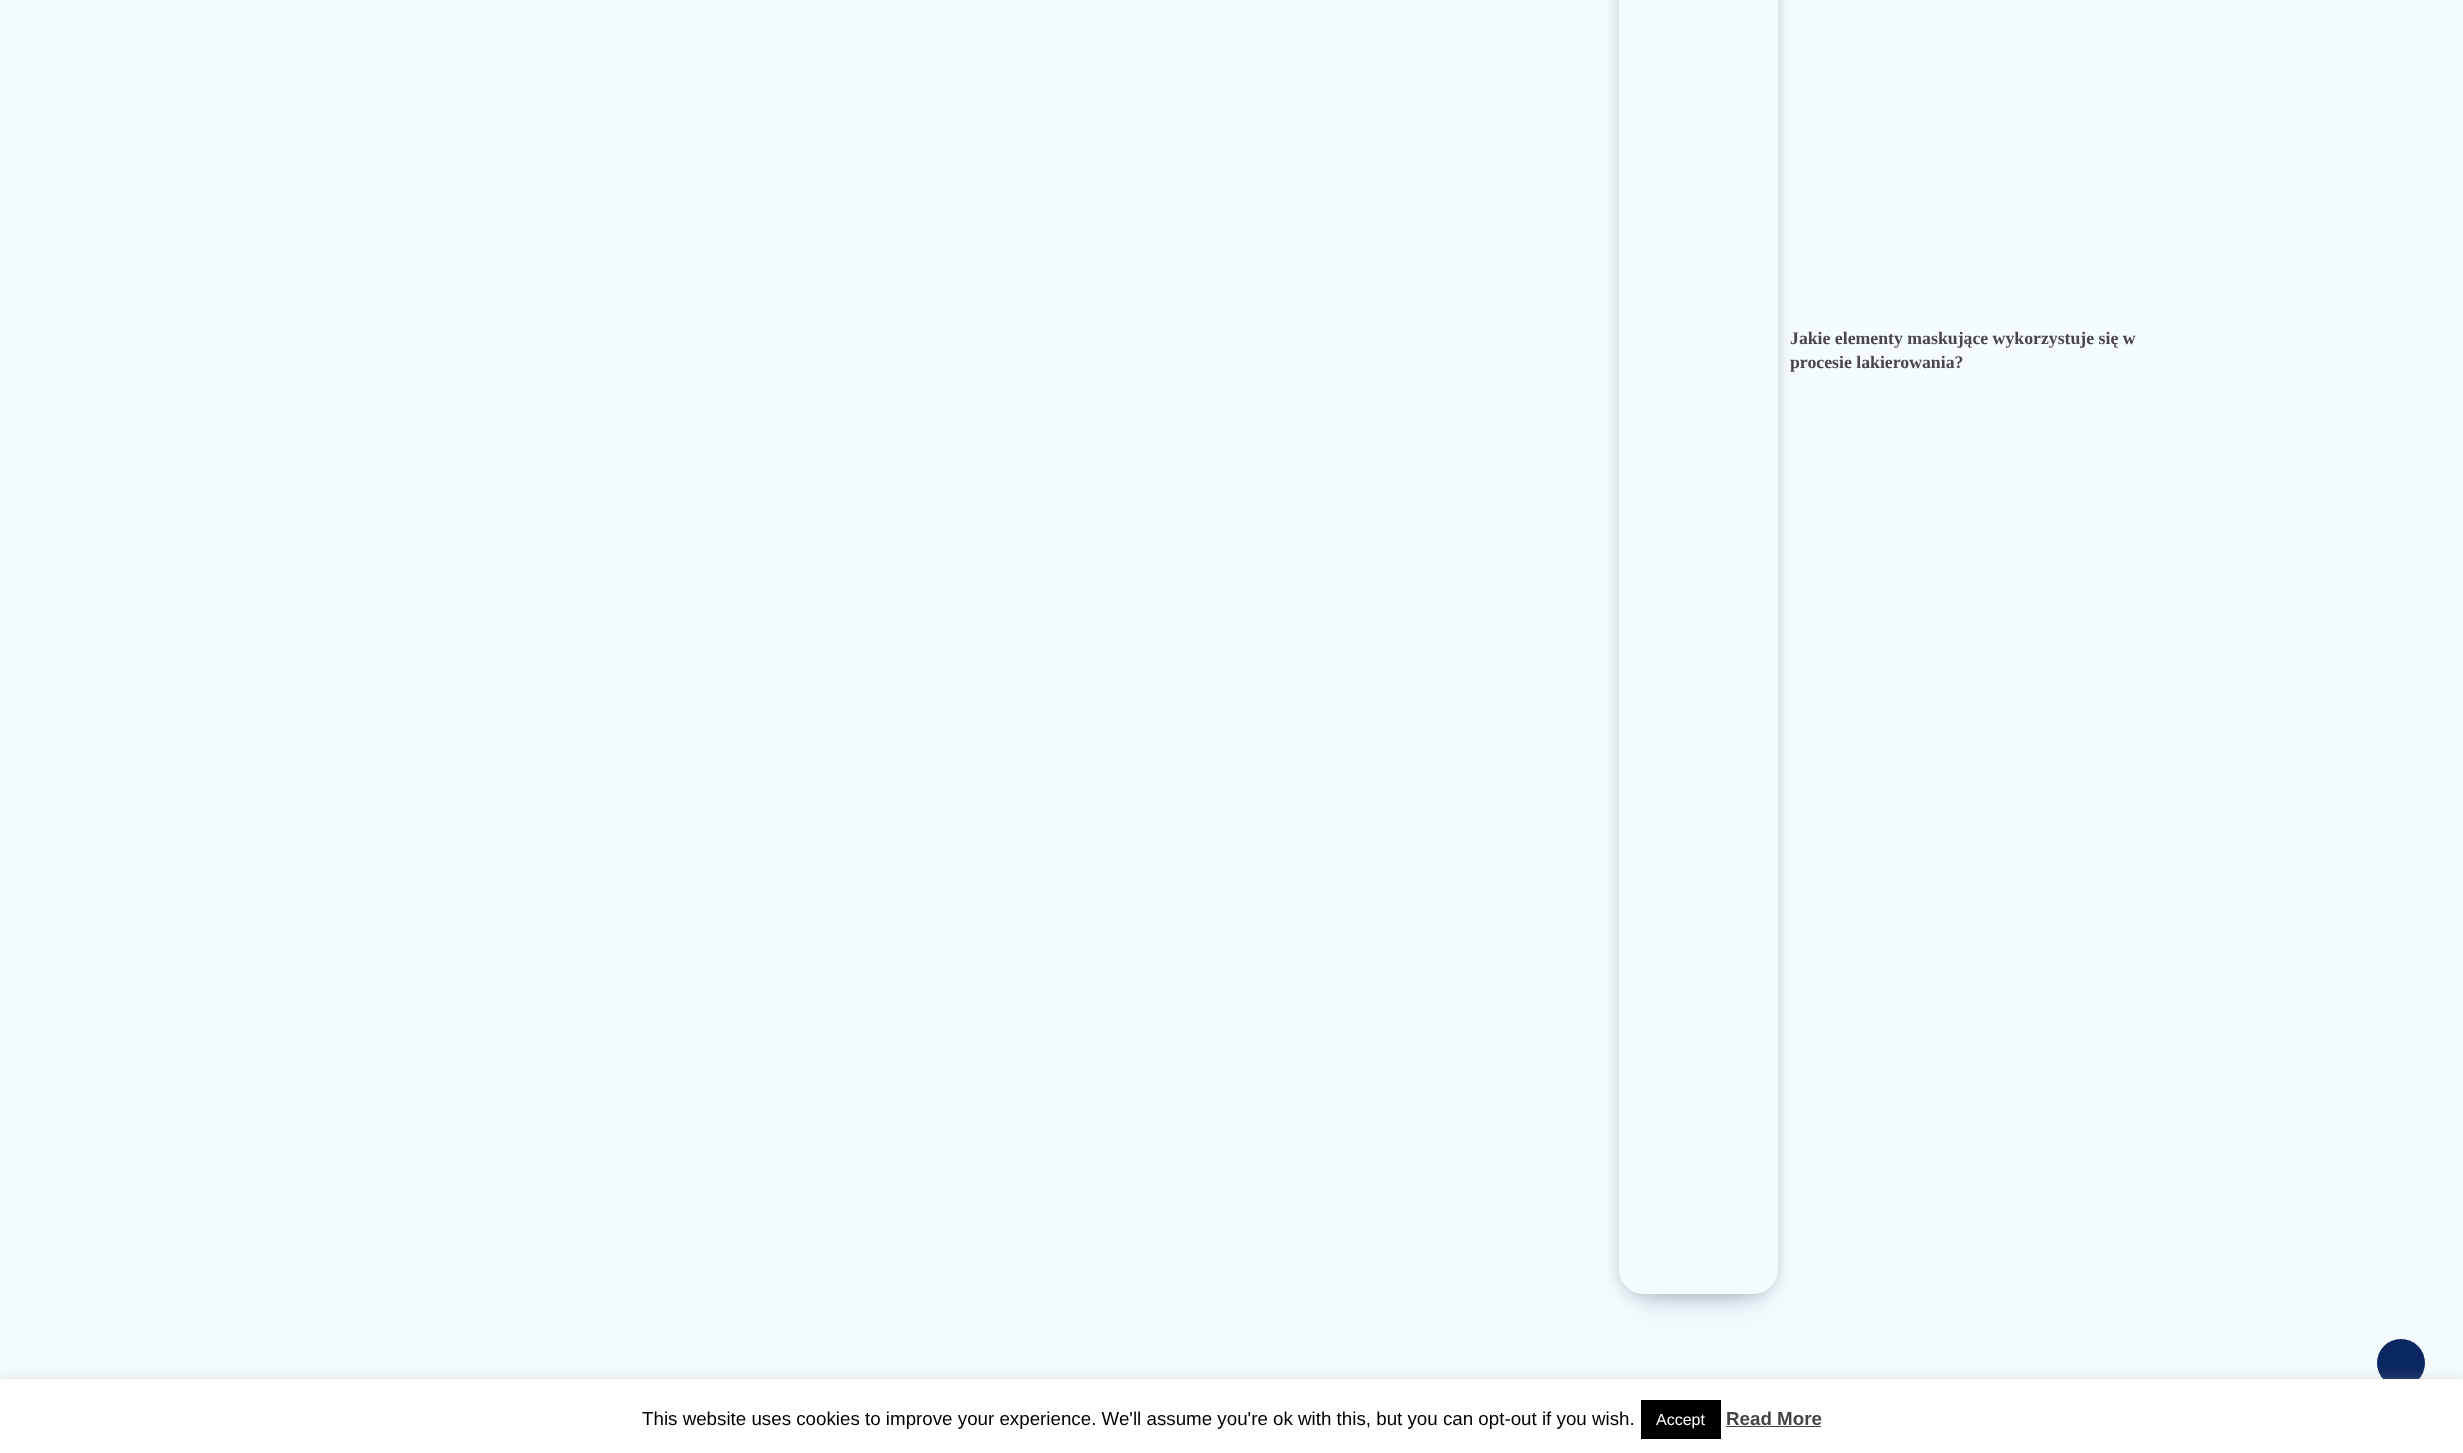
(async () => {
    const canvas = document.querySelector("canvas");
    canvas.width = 2463;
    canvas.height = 1453;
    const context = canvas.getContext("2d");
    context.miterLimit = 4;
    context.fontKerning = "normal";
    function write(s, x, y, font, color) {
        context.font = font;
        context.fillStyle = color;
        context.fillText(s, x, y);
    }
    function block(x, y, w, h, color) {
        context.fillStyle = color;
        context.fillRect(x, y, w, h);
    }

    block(0, 0, 2463, 1453, "rgb(244, 251, 255)");
    context.save();
    context.beginPath();
    context.moveTo(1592, 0);
    context.lineTo(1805, 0);
    context.lineTo(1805, 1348);
    context.lineTo(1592, 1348);
    context.closePath();
    context.moveTo(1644, -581);
    context.lineTo(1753, -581);
    context.bezierCurveTo(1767, -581, 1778, -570, 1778, -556);
    context.lineTo(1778, 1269);
    context.bezierCurveTo(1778, 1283, 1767, 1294, 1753, 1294);
    context.lineTo(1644, 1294);
    context.bezierCurveTo(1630, 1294, 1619, 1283, 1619, 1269);
    context.lineTo(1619, -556);
    context.bezierCurveTo(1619, -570, 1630, -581, 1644, -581);
    context.closePath();
    context.clip("evenodd");
    context.fillStyle = "rgba(7, 10, 25, 0.2)";
    context.filter = "blur(17px)";
    context.beginPath();
    context.rect(1644, -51, 109, 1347);
    context.fill();
    context.filter = "none";
    context.restore();
    context.save();
    context.beginPath();
    context.moveTo(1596, 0);
    context.lineTo(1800, 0);
    context.lineTo(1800, 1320);
    context.lineTo(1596, 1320);
    context.closePath();
    context.moveTo(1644, -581);
    context.lineTo(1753, -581);
    context.bezierCurveTo(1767, -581, 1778, -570, 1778, -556);
    context.lineTo(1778, 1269);
    context.bezierCurveTo(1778, 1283, 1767, 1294, 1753, 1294);
    context.lineTo(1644, 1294);
    context.bezierCurveTo(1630, 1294, 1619, 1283, 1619, 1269);
    context.lineTo(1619, -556);
    context.bezierCurveTo(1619, -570, 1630, -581, 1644, -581);
    context.closePath();
    context.clip("evenodd");
    context.fillStyle = "rgba(7, 10, 25, 0.2)";
    context.filter = "blur(7.5px)";
    context.beginPath();
    context.roundRect(1620, -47, 156, 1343, 24);
    context.fill();
    context.filter = "none";
    context.restore();
    write("Jakie elementy maskujące wykorzystuje się w", 1790, 344, "bold 17.75px Liberation Serif", "rgb(75, 70, 76)");
    write("procesie lakierowania?", 1790, 368, "bold 17.75px Liberation Serif", "rgb(75, 70, 76)");
    context.fillStyle = "rgb(11, 39, 97)";
    context.beginPath();
    context.arc(2401, 1363, 24.5, 0, Math.PI * 2);
    context.fill();
    context.strokeStyle = "rgb(255, 255, 255)";
    context.stroke();
    context.fillStyle = "rgba(172, 171, 171, 0.3)";
    context.filter = "blur(6px)";
    context.beginPath();
    context.rect(0, 1378, 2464, 75);
    context.fill();
    context.filter = "none";
    block(0, 1379, 2463, 74, "rgb(255, 255, 255)");
    write("This website uses cookies to improve your experience. We'll assume you're ok with this, but you can opt-out if you wish.", 642, 1425, "18.75px Liberation Sans", "rgb(0, 0, 0)");
    block(1641, 1400, 80, 39, "rgb(0, 0, 0)");
    write("Accept", 1656, 1425, "16px Liberation Sans", "rgb(255, 255, 255)");
    write("Read More", 1726, 1425, "bold 18.75px Liberation Sans", "rgb(68, 68, 68)");
    block(1726, 1426, 95, 1, "rgb(68, 68, 68)");
})();
